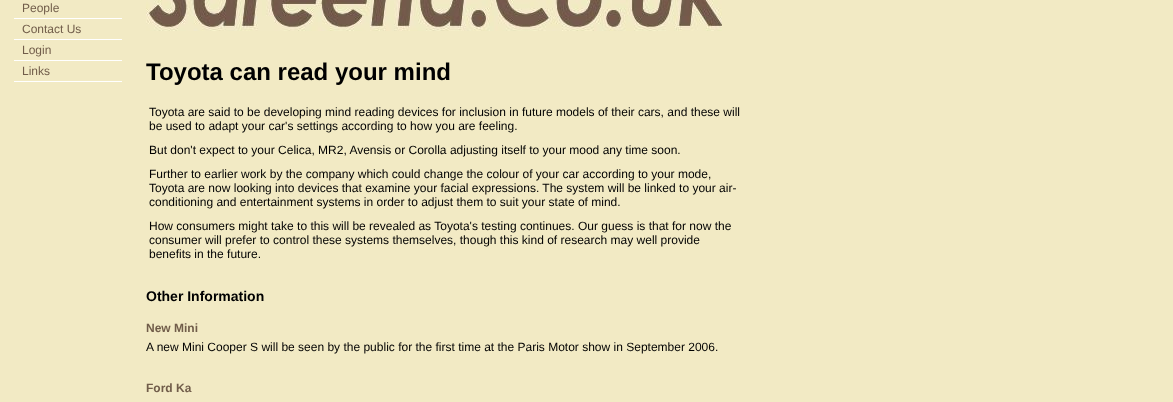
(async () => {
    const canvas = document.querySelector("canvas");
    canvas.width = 1173;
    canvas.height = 402;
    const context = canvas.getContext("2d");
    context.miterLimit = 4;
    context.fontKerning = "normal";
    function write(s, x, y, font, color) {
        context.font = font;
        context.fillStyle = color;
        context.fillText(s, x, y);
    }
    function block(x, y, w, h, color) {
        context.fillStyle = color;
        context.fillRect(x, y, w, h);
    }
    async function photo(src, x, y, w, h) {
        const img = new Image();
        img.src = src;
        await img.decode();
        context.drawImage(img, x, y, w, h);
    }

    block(0, 0, 1173, 402, "rgb(242, 234, 196)");
    block(14, 18, 108, 64, "rgb(255, 255, 255)");
    write("People", 22, 12, "12px Liberation Sans", "rgb(113, 93, 74)");
    block(14, 19, 108, 20, "rgb(242, 234, 196)");
    write("Contact Us", 22, 33, "12px Liberation Sans", "rgb(113, 93, 74)");
    block(14, 40, 108, 20, "rgb(242, 234, 196)");
    write("Login", 22, 54, "12px Liberation Sans", "rgb(113, 93, 74)");
    block(14, 61, 108, 20, "rgb(242, 234, 196)");
    write("Links", 22, 75, "12px Liberation Sans", "rgb(113, 93, 74)");
    await photo("media/1.png", 146, 0, 576, 31);
    write("Toyota can read your mind", 146, 80, "bold 24px Liberation Sans", "rgb(0, 0, 0)");
    write("Toyota are said to be developing mind reading devices for inclusion in future models of their cars, and these will", 149, 116, "12px Liberation Sans", "rgb(0, 0, 0)");
    write("be used to adapt your car's settings according to how you are feeling.", 149, 130, "12px Liberation Sans", "rgb(0, 0, 0)");
    write("But don't expect to your Celica, MR2, Avensis or Corolla adjusting itself to your mood any time soon.", 149, 154, "12px Liberation Sans", "rgb(0, 0, 0)");
    write("Further to earlier work by the company which could change the colour of your car according to your mode,", 149, 178, "12px Liberation Sans", "rgb(0, 0, 0)");
    write("Toyota are now looking into devices that examine your facial expressions. The system will be linked to your air-", 149, 192, "12px Liberation Sans", "rgb(0, 0, 0)");
    write("conditioning and entertainment systems in order to adjust them to suit your state of mind.", 149, 206, "12px Liberation Sans", "rgb(0, 0, 0)");
    write("How consumers might take to this will be revealed as Toyota's testing continues. Our guess is that for now the", 149, 230, "12px Liberation Sans", "rgb(0, 0, 0)");
    write("consumer will prefer to control these systems themselves, though this kind of research may well provide", 149, 244, "12px Liberation Sans", "rgb(0, 0, 0)");
    write("benefits in the future.", 149, 258, "12px Liberation Sans", "rgb(0, 0, 0)");
    write("Other Information", 146, 301, "bold 14px Liberation Sans", "rgb(0, 0, 0)");
    write("New Mini", 146, 332, "bold 12px Liberation Sans", "rgb(113, 93, 74)");
    write("A new Mini Cooper S will be seen by the public for the first time at the Paris Motor show in September 2006.", 146, 351, "12px Liberation Sans", "rgb(0, 0, 0)");
    write("Ford Ka", 146, 392, "bold 12px Liberation Sans", "rgb(113, 93, 74)");
})();
